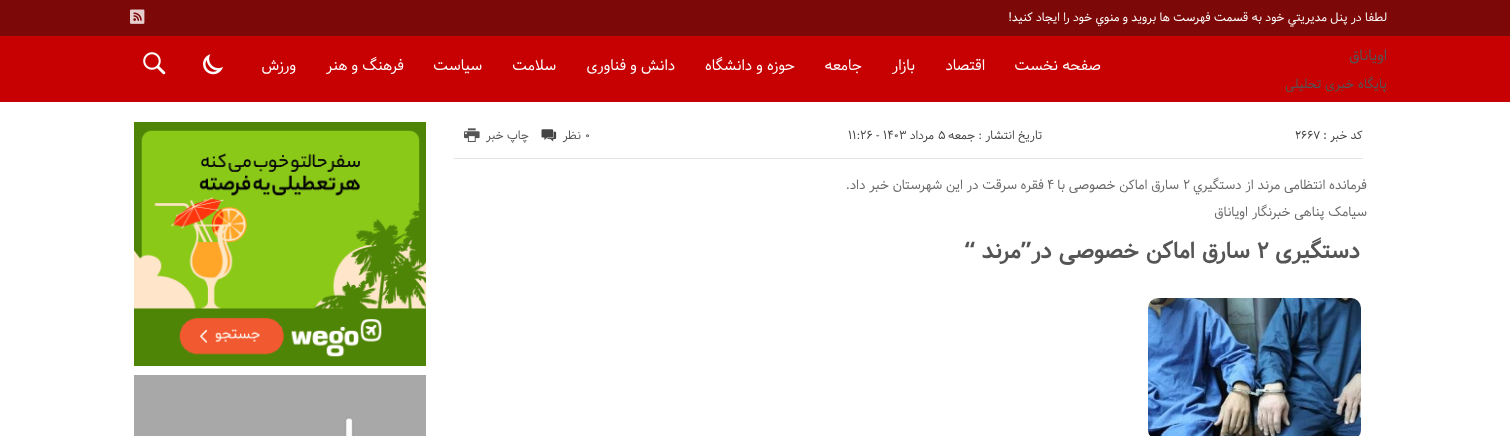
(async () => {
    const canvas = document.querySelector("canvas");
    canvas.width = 1510;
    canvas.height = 436;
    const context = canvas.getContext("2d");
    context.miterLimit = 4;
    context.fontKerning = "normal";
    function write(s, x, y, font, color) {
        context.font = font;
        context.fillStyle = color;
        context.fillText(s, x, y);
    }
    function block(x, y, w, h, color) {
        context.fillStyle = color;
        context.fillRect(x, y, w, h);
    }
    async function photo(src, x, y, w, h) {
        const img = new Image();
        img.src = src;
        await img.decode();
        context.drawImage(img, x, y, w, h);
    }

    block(0, 0, 1510, 436, "rgb(255, 255, 255)");
    block(0, 0, 1510, 36, "rgb(125, 8, 8)");
    context.direction = "rtl";
    write("لطفا در پنل مديريتي خود به قسمت فهرست ها برويد و منوي خود را ايجاد كنيد!", 1387, 21, "12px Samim", "rgb(255, 255, 255)");
    await photo("media/1.png", 130, 9, 15, 15);
    block(0, 36, 1510, 66, "rgb(199, 1, 2)");
    write("اویاناق", 1387, 60, "15px Samim", "rgb(85, 85, 85)");
    write("پایگاه خبری تحلیلی", 1387, 88, "13.25px Samim", "rgb(85, 85, 85)");
    write("صفحه نخست", 1101, 70, "15px Samim", "rgb(255, 255, 255)");
    write("اقتصاد", 985, 70, "15px Samim", "rgb(255, 255, 255)");
    write("بازار", 915, 70, "15px Samim", "rgb(255, 255, 255)");
    write("جامعه", 862, 70, "15px Samim", "rgb(255, 255, 255)");
    write("حوزه و دانشگاه", 795, 70, "15px Samim", "rgb(255, 255, 255)");
    write("دانش و فناوری", 675, 70, "15px Samim", "rgb(255, 255, 255)");
    write("سلامت", 556, 70, "15px Samim", "rgb(255, 255, 255)");
    write("سیاست", 482, 70, "15px Samim", "rgb(255, 255, 255)");
    write("فرهنگ و هنر", 404, 70, "15px Samim", "rgb(255, 255, 255)");
    write("ورزش", 296, 70, "15px Samim", "rgb(255, 255, 255)");
    await photo("media/2.png", 203, 54, 20, 21);
    await photo("media/3.png", 143, 52, 23, 23);
    write("کد خبر :", 1363, 139, "12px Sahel", "rgb(68, 68, 68)");
    context.direction = "ltr";
    write("2667", 1295, 139, "12px Sahel", "rgb(68, 68, 68)");
    context.direction = "rtl";
    write("تاریخ انتشار : جمعه", 1042, 139, "12px Samim", "rgb(68, 68, 68)");
    context.direction = "ltr";
    write("۵", 938, 139, "12px Samim", "rgb(68, 68, 68)");
    context.direction = "rtl";
    write("مرداد", 934, 139, "12px Samim", "rgb(68, 68, 68)");
    context.direction = "ltr";
    write("۱۱:۲۶ - ۱۴۰۳", 848, 139, "12px Samim", "rgb(68, 68, 68)");
    write("۰", 585, 139, "12px Samim", "rgb(85, 85, 85)");
    context.direction = "rtl";
    write("نظر", 581, 139, "12px Samim", "rgb(85, 85, 85)");
    await photo("media/4.png", 541, 129, 16, 13);
    write("چاپ خبر", 529, 139, "12px Samim", "rgb(85, 85, 85)");
    await photo("media/5.png", 464, 128, 16, 14);
    block(454, 158, 909, 1, "rgb(229, 229, 229)");
    write("فرمانده انتظامی مرند از دستگيري", 1367, 189, "13.25px Samim", "rgb(105, 105, 105)");
    context.direction = "ltr";
    write("۲", 1183, 189, "13.25px Samim", "rgb(105, 105, 105)");
    context.direction = "rtl";
    write("سارق اماکن خصوصی با", 1179, 189, "13.25px Samim", "rgb(105, 105, 105)");
    context.direction = "ltr";
    write("۴", 1047, 189, "13.25px Samim", "rgb(105, 105, 105)");
    context.direction = "rtl";
    write("فقره سرقت در این شهرستان خبر داد.", 1044, 189, "13.25px Samim", "rgb(105, 105, 105)");
    write("سیامک پناهی خبرنگار اویاناق", 1367, 216, "13.25px Samim", "rgb(105, 105, 105)");
    context.letterSpacing = "-0.2px";
    write("دستگیری", 1360, 258, "bold 22.75px Samim", "rgb(85, 85, 85)");
    context.direction = "ltr";
    write("۲", 1257, 258, "bold 22.75px Samim", "rgb(85, 85, 85)");
    context.wordSpacing = "1px";
    context.direction = "rtl";
    write("سارق اماکن خصوصی در”مرند “", 1250, 258, "bold 22.75px Samim", "rgb(85, 85, 85)");
    await photo("media/6.png", 1148, 298, 213, 138);
    await photo("media/7.png", 134, 122, 292, 244);
    await photo("media/8.png", 134, 375, 292, 61);
})();
